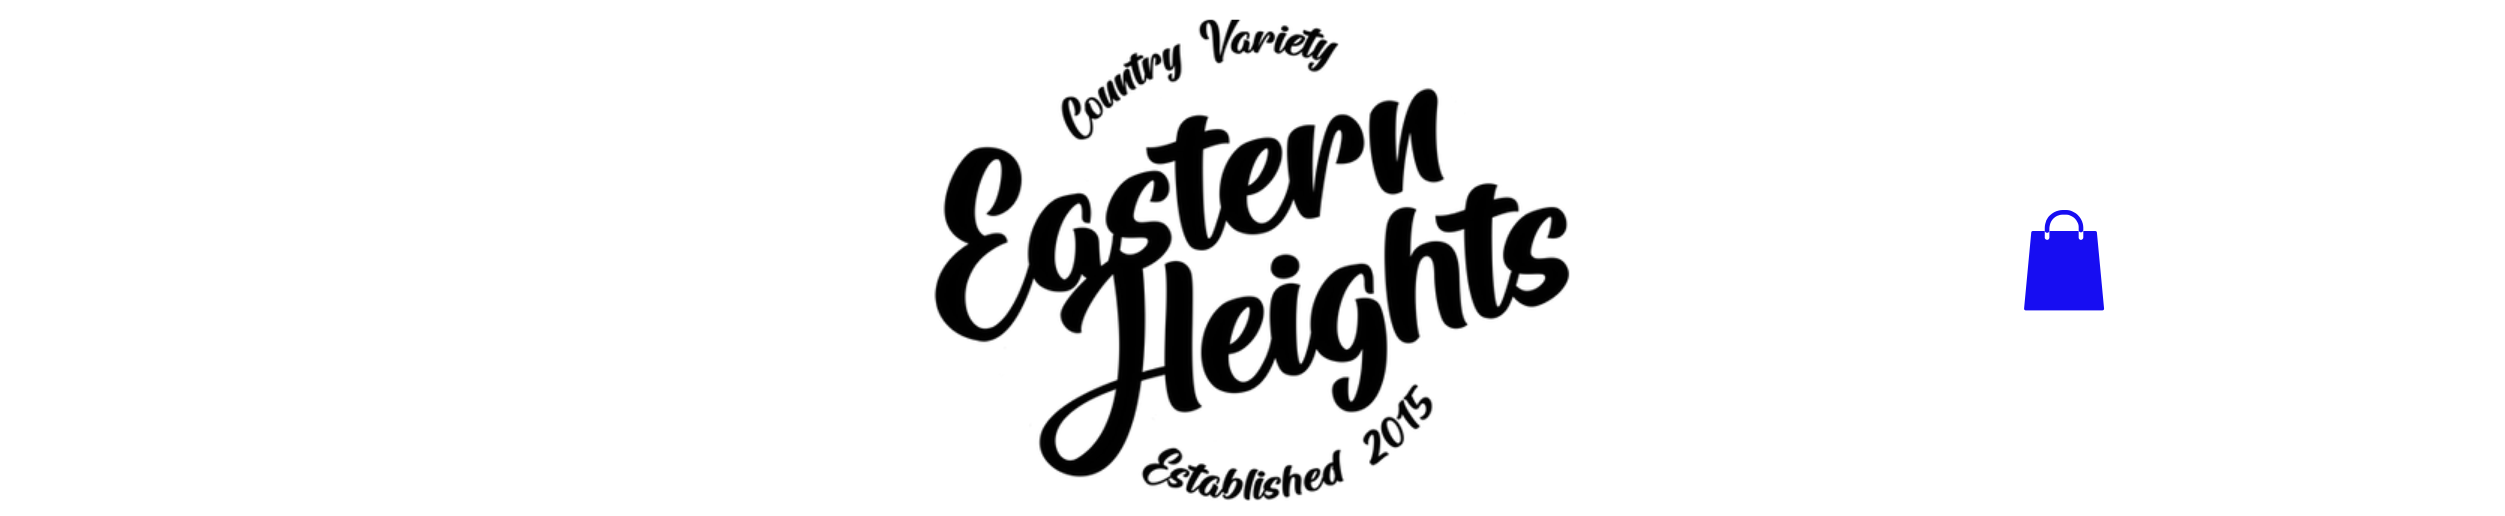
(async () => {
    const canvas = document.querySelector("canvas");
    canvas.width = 2505;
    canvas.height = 516;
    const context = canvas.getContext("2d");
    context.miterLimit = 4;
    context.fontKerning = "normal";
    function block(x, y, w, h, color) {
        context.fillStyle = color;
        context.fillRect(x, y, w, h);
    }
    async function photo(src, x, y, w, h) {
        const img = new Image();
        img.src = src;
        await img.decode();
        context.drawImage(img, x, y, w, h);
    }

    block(0, 0, 2505, 516, "rgb(255, 255, 255)");
    await photo("media/1.png", 934, 19, 636, 482);
    await photo("media/2.png", 2024, 210, 81, 101);
})();
